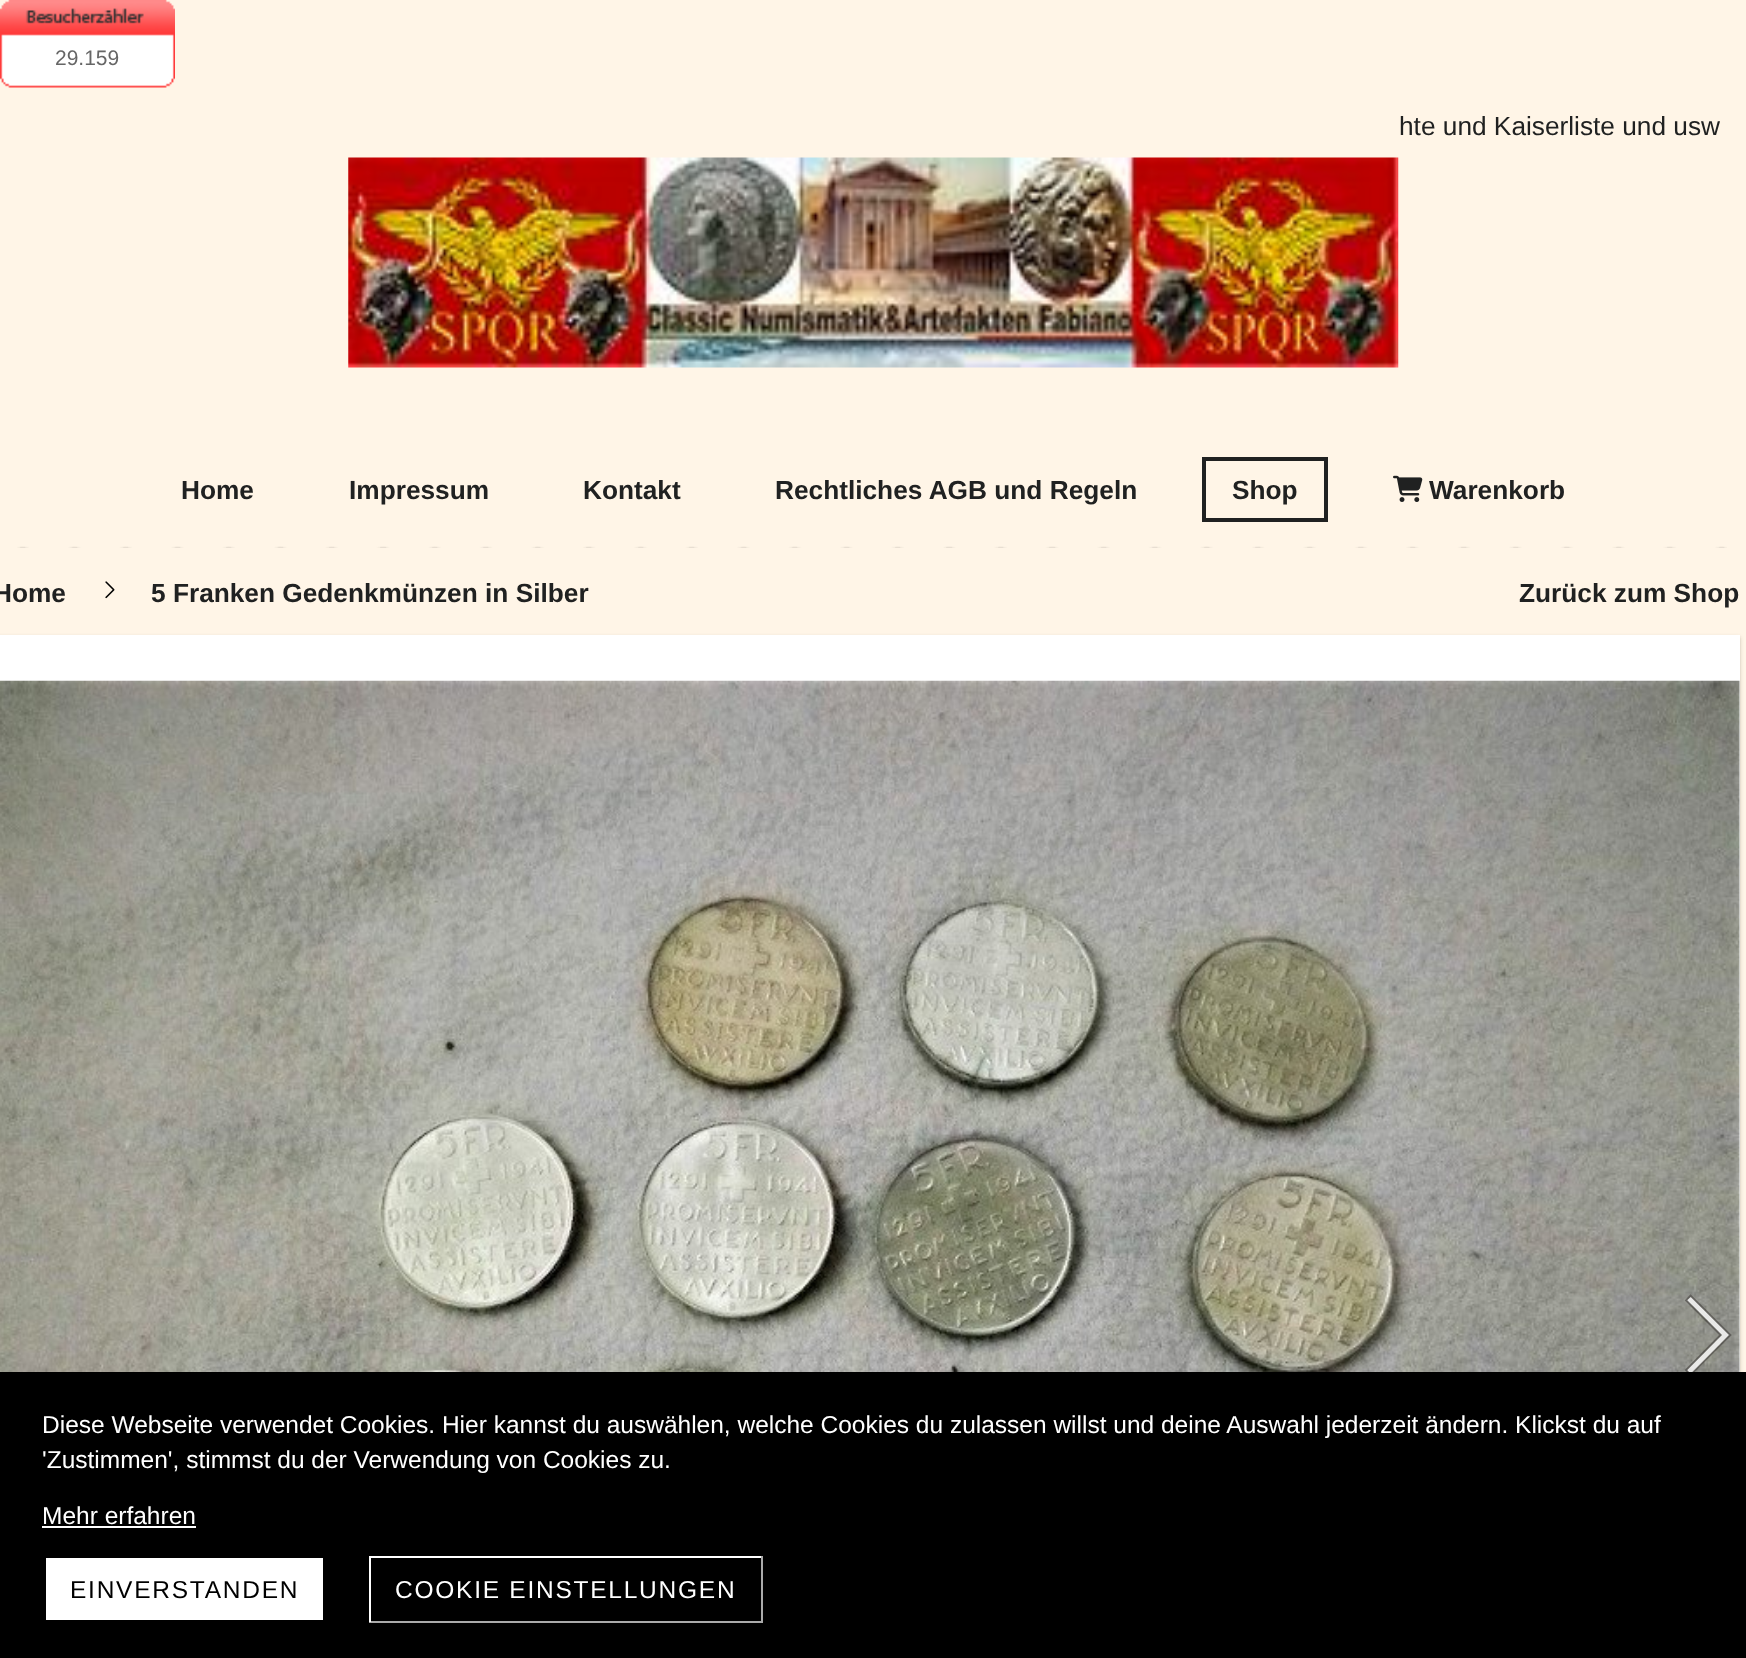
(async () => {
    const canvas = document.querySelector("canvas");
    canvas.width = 1746;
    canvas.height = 1658;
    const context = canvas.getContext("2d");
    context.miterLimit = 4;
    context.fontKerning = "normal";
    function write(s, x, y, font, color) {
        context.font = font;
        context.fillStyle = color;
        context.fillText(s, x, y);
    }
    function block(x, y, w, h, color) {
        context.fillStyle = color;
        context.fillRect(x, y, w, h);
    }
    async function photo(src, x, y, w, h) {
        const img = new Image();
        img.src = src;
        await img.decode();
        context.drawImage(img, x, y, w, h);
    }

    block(0, 0, 1746, 1658, "rgb(255, 245, 231)");
    await photo("media/1.png", 0, 0, 175, 88);
    write("29.159", 55, 65, "21px Liberation Sans", "rgb(102, 102, 102)");
    write("hte und Kaiserliste und usw", 1399, 135, "26.25px Liberation Sans", "rgb(32, 33, 33)");
    await photo("media/2.png", 348, 157, 1051, 211);
    write("Home", 181, 499, "bold 26.25px Liberation Sans", "rgb(32, 33, 33)");
    write("Impressum", 349, 499, "bold 26.25px Liberation Sans", "rgb(32, 33, 33)");
    write("Kontakt", 583, 499, "bold 26.25px Liberation Sans", "rgb(32, 33, 33)");
    write("Rechtliches AGB und Regeln", 775, 499, "bold 26.25px Liberation Sans", "rgb(32, 33, 33)");
    context.strokeStyle = "rgb(32, 33, 33)";
    context.lineWidth = 4;
    context.strokeRect(1204, 459, 122, 61);
    write("Shop", 1232, 499, "bold 26.25px Liberation Sans", "rgb(32, 33, 33)");
    await photo("media/3.png", 1393, 475, 30, 27);
    write("Warenkorb", 1429, 499, "bold 26.25px Liberation Sans", "rgb(32, 33, 33)");
    await photo("media/4.png", 17, 546, 1710, 2);
    write("Home", -7, 602, "bold 26.25px Liberation Sans", "rgb(32, 33, 33)");
    await photo("media/5.png", 105, 581, 10, 18);
    write("5 Franken Gedenkmünzen in Silber", 151, 602, "bold 26.25px Liberation Sans", "rgb(32, 33, 33)");
    write("Zurück zum Shop", 1519, 602, "bold 26.25px Liberation Sans", "rgb(32, 33, 33)");
    context.fillStyle = "rgba(30, 19, 12, 0.1)";
    context.filter = "blur(1px)";
    context.beginPath();
    context.rect(-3, 637, 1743, 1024);
    context.fill();
    context.filter = "none";
    context.fillStyle = "rgba(30, 19, 12, 0.15)";
    context.filter = "blur(2px)";
    context.beginPath();
    context.rect(-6, 637, 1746, 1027);
    context.fill();
    context.filter = "none";
    block(0, 635, 1740, 737, "rgb(255, 255, 255)");
    await photo("media/6.png", 0, 680, 1740, 692);
    context.fillStyle = "rgba(255, 255, 255, 0.8)";
    context.beginPath();
    context.moveTo(1729, 1335);
    context.lineTo(1691, 1374);
    context.lineTo(1687, 1370);
    context.lineTo(1722, 1335);
    context.lineTo(1687, 1300);
    context.lineTo(1691, 1297);
    context.closePath();
    context.fill("evenodd");
    context.beginPath();
    context.moveTo(1720.5, 1335);
    context.lineTo(1686, 1300.5);
    context.lineTo(1690.5, 1295.5);
    context.lineTo(1730.5, 1335);
    context.lineTo(1690.5, 1375);
    context.lineTo(1686, 1370);
    context.closePath();
    context.strokeStyle = "rgba(51, 48, 46, 0.5)";
    context.lineWidth = 1.8;
    context.stroke();
    block(0, 1372, 1746, 286, "rgb(0, 0, 0)");
    write("Diese Webseite verwendet Cookies. Hier kannst du auswählen, welche Cookies du zulassen willst und deine Auswahl jederzeit ändern. Klickst du auf", 42, 1433, "24.5px Liberation Sans", "rgb(255, 255, 255)");
    write("'Zustimmen', stimmst du der Verwendung von Cookies zu.", 42, 1468, "24.5px Liberation Sans", "rgb(255, 255, 255)");
    write("Mehr erfahren", 42, 1524, "24.5px Liberation Sans", "rgb(255, 255, 255)");
    block(42, 1526, 154, 2, "rgb(255, 255, 255)");
    block(46, 1558, 277, 62, "rgb(255, 255, 255)");
    context.letterSpacing = "1.75px";
    write("EINVERSTANDEN", 70, 1598, "24.5px Liberation Sans", "rgb(0, 0, 0)");
    block(369, 1556, 394, 2, "rgb(255, 255, 255)");
    block(761, 1556, 2, 66, "rgb(170, 170, 170)");
    block(369, 1621, 394, 2, "rgb(170, 170, 170)");
    block(369, 1556, 2, 66, "rgb(255, 255, 255)");
    write("COOKIE EINSTELLUNGEN", 395, 1598, "24.5px Liberation Sans", "rgb(255, 255, 255)");
})();
